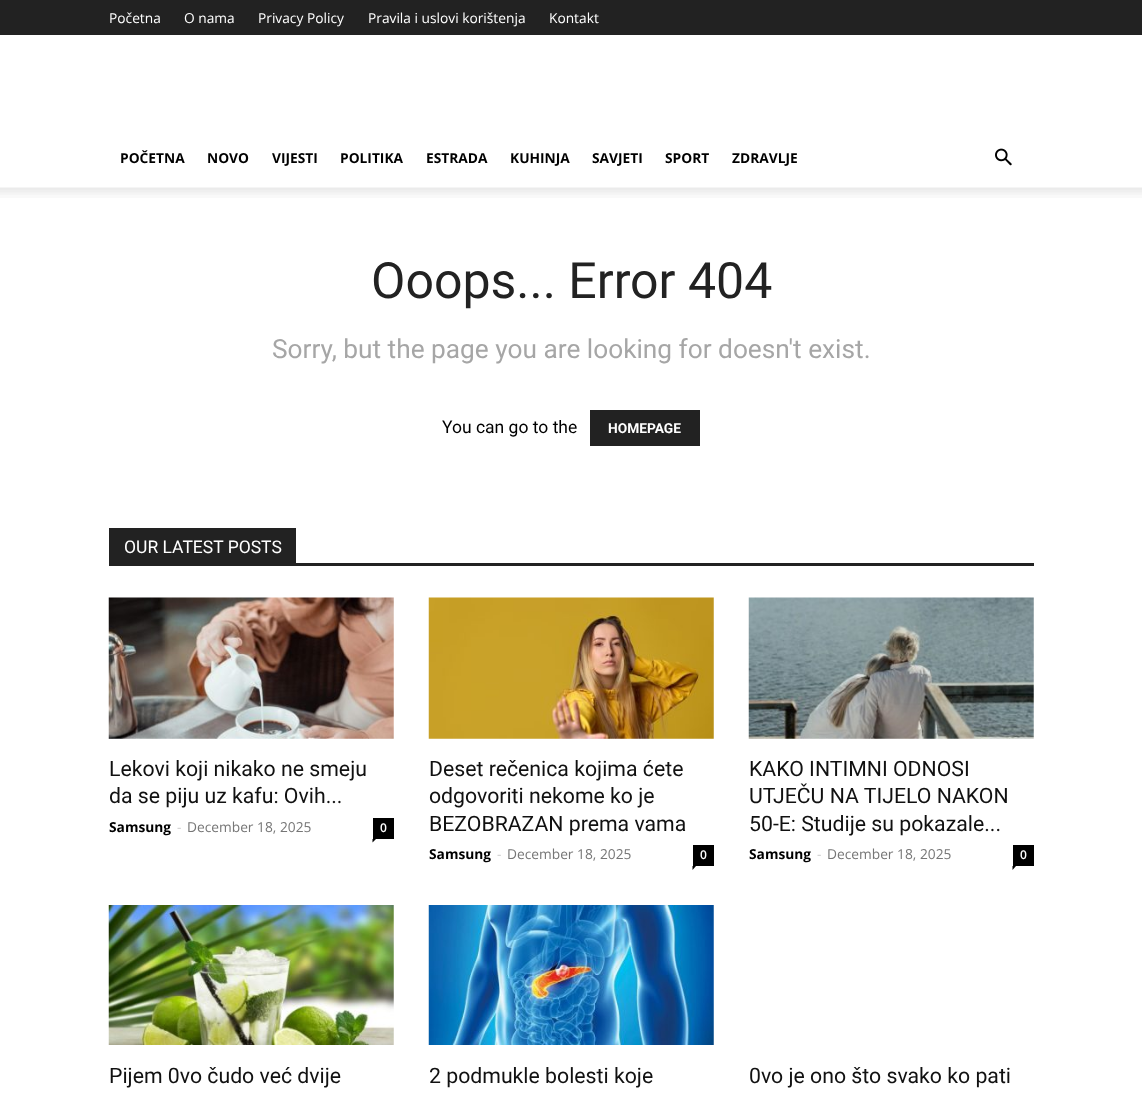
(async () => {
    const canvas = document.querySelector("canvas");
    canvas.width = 1142;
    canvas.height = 1094;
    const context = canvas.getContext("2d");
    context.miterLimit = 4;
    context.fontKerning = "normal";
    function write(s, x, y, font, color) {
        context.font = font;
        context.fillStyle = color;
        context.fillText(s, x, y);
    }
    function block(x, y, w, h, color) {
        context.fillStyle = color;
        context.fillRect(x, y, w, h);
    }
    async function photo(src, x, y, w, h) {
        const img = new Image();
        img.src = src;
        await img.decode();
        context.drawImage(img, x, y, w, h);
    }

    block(0, 0, 1142, 1094, "rgb(255, 255, 255)");
    block(0, 0, 1142, 35, "rgb(34, 34, 34)");
    write("Početna", 109, 23, "13.75px Open Sans", "rgb(255, 255, 255)");
    write("O nama", 184, 23, "13.75px Open Sans", "rgb(255, 255, 255)");
    write("Privacy Policy", 258, 23, "13.75px Open Sans", "rgb(255, 255, 255)");
    write("Pravila i uslovi korištenja", 368, 23, "13.75px Open Sans", "rgb(255, 255, 255)");
    write("Kontakt", 549, 23, "13.75px Open Sans", "rgb(255, 255, 255)");
    write("POČETNA", 120, 163, "bold 13.75px Open Sans", "rgb(0, 0, 0)");
    write("NOVO", 207, 163, "bold 13.75px Open Sans", "rgb(0, 0, 0)");
    write("VIJESTI", 272, 163, "bold 13.75px Open Sans", "rgb(0, 0, 0)");
    write("POLITIKA", 340, 163, "bold 13.75px Open Sans", "rgb(0, 0, 0)");
    write("ESTRADA", 426, 163, "bold 13.75px Open Sans", "rgb(0, 0, 0)");
    write("KUHINJA", 510, 163, "bold 13.75px Open Sans", "rgb(0, 0, 0)");
    write("SAVJETI", 592, 163, "bold 13.75px Open Sans", "rgb(0, 0, 0)");
    write("SPORT", 665, 163, "bold 13.75px Open Sans", "rgb(0, 0, 0)");
    write("ZDRAVLJE", 732, 163, "bold 13.75px Open Sans", "rgb(0, 0, 0)");
    await photo("media/1.png", 995, 148, 17, 18);
    await photo("media/2.png", 0, 187, 1142, 11);
    write("Ooops... Error 404", 371, 298, "50px Roboto", "rgb(34, 34, 34)");
    write("Sorry, but the page you are looking for doesn't exist.", 272, 358, "26.25px Roboto", "rgb(166, 166, 166)");
    write("You can go to the", 442, 433, "17.5px Roboto", "rgb(0, 0, 0)");
    block(590, 410, 110, 36, "rgb(34, 34, 34)");
    write("HOMEPAGE", 608, 433, "bold 13.75px Roboto", "rgb(255, 255, 255)");
    block(109, 563, 925, 3, "rgb(34, 34, 34)");
    block(109, 528, 187, 35, "rgb(34, 34, 34)");
    write("OUR LATEST POSTS", 124, 553, "17.5px Roboto", "rgb(255, 255, 255)");
    await photo("media/3.png", 108, 597, 286, 142);
    write("Lekovi koji nikako ne smeju", 109, 776, "21.25px Roboto", "rgb(17, 17, 17)");
    write("da se piju uz kafu: Ovih...", 109, 803, "21.25px Roboto", "rgb(17, 17, 17)");
    write("Samsung", 109, 832, "bold 13.75px Open Sans", "rgb(0, 0, 0)");
    write("-", 177, 832, "13.75px Open Sans", "rgb(204, 204, 204)");
    write("December 18, 2025", 187, 832, "13.75px Open Sans", "rgb(118, 118, 118)");
    block(373, 818, 21, 21, "rgb(0, 0, 0)");
    write("0", 380, 832, "600 12px Open Sans", "rgb(255, 255, 255)");
    context.fillStyle = "rgb(0, 0, 0)";
    context.beginPath();
    context.moveTo(372.5, 839);
    context.lineTo(376, 839);
    context.lineTo(372.5, 842.5);
    context.closePath();
    context.fill();
    await photo("media/4.png", 428, 597, 286, 142);
    write("Deset rečenica kojima ćete", 429, 776, "21.25px Roboto", "rgb(17, 17, 17)");
    write("odgovoriti nekome ko je", 429, 803, "21.25px Roboto", "rgb(17, 17, 17)");
    write("BEZOBRAZAN prema vama", 429, 831, "21.25px Roboto", "rgb(17, 17, 17)");
    write("Samsung", 429, 859, "bold 13.75px Open Sans", "rgb(0, 0, 0)");
    write("-", 497, 859, "13.75px Open Sans", "rgb(204, 204, 204)");
    write("December 18, 2025", 507, 859, "13.75px Open Sans", "rgb(118, 118, 118)");
    block(693, 845, 21, 21, "rgb(0, 0, 0)");
    write("0", 700, 859, "600 12px Open Sans", "rgb(255, 255, 255)");
    context.fillStyle = "rgb(0, 0, 0)";
    context.beginPath();
    context.moveTo(692.5, 866);
    context.lineTo(696, 866);
    context.lineTo(692.5, 870);
    context.closePath();
    context.fill();
    await photo("media/5.png", 748, 597, 286, 142);
    write("KAKO INTIMNI ODNOSI", 749, 776, "21.25px Roboto", "rgb(17, 17, 17)");
    write("UTJEČU NA TIJELO NAKON", 749, 803, "21.25px Roboto", "rgb(17, 17, 17)");
    write("50-E: Studije su pokazale...", 749, 831, "21.25px Roboto", "rgb(17, 17, 17)");
    write("Samsung", 749, 859, "bold 13.75px Open Sans", "rgb(0, 0, 0)");
    write("-", 817, 859, "13.75px Open Sans", "rgb(204, 204, 204)");
    write("December 18, 2025", 827, 859, "13.75px Open Sans", "rgb(118, 118, 118)");
    block(1013, 845, 21, 21, "rgb(0, 0, 0)");
    write("0", 1020, 859, "600 12px Open Sans", "rgb(255, 255, 255)");
    context.fillStyle = "rgb(0, 0, 0)";
    context.beginPath();
    context.moveTo(1012.5, 866);
    context.lineTo(1016, 866);
    context.lineTo(1012.5, 870);
    context.closePath();
    context.fill();
    await photo("media/6.png", 108, 905, 286, 140);
    write("Pijem 0vo čudo već dvije", 109, 1083, "21.25px Roboto", "rgb(17, 17, 17)");
    await photo("media/7.png", 428, 905, 286, 140);
    write("2 podmukle bolesti koje", 429, 1083, "21.25px Roboto", "rgb(17, 17, 17)");
    write("0vo je ono što svako ko pati", 749, 1083, "21.25px Roboto", "rgb(17, 17, 17)");
})();
